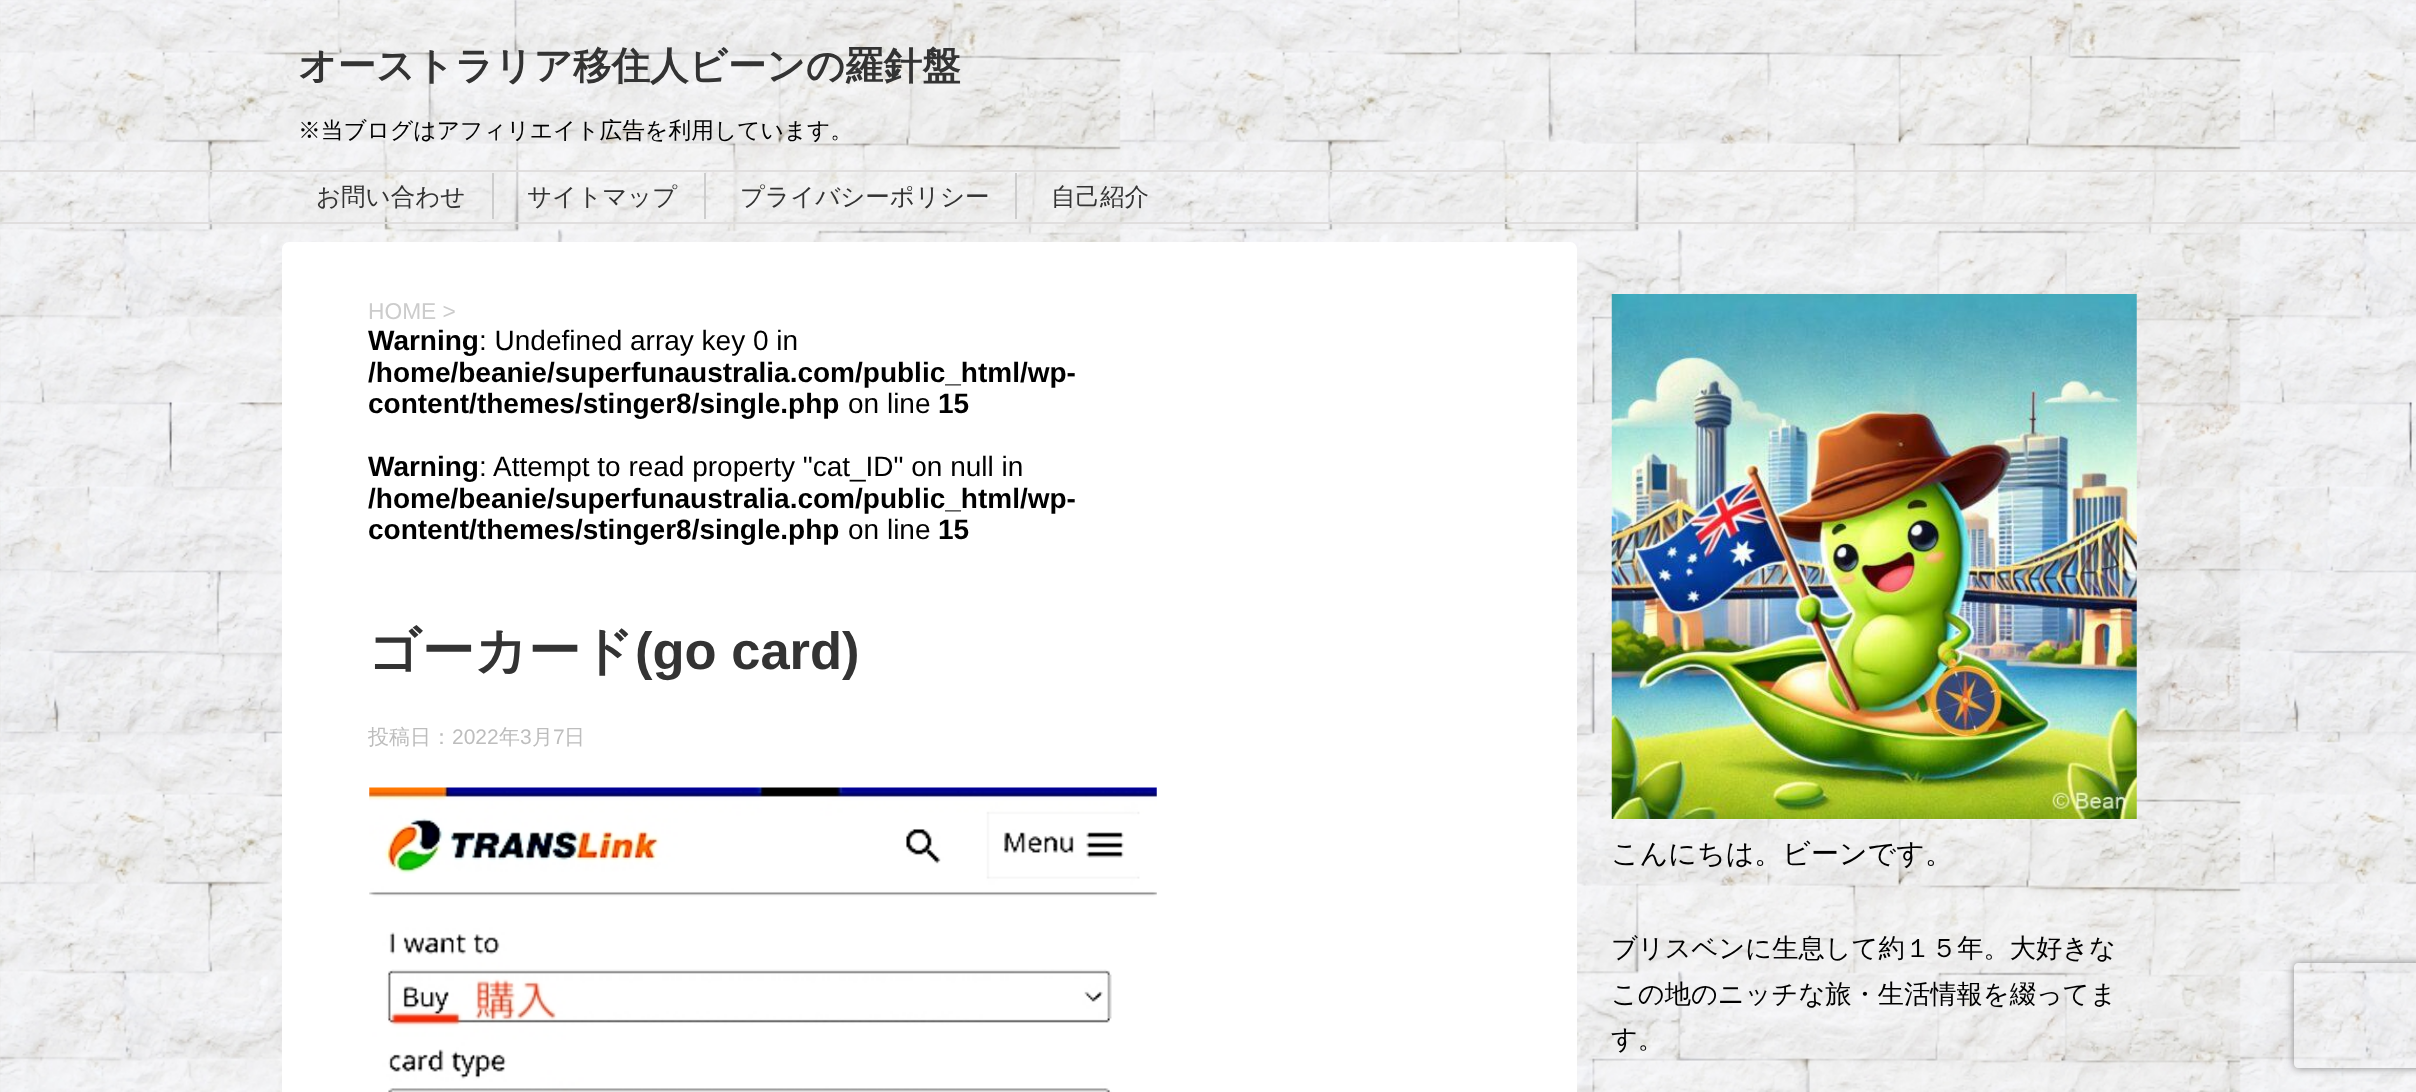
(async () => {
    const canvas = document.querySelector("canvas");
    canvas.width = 2416;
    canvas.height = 1092;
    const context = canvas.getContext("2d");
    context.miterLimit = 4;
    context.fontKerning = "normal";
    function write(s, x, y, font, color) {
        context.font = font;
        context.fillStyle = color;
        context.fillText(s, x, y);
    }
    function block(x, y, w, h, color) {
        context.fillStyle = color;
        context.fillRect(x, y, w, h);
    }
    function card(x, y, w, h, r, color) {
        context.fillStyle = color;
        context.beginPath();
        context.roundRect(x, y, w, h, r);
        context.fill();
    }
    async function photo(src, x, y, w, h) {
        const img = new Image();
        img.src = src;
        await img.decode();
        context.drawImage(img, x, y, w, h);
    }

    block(0, 0, 2416, 1092, "rgb(255, 255, 255)");
    await photo("media/1.png", 0, 0, 2416, 1092);
    write("オーストラリア移住人ビーンの羅針盤", 298, 79, "bold 38.5px WenQuanYi Zen Hei", "rgb(51, 51, 51)");
    write("※当ブログはアフィリエイト広告を利用しています。", 298, 138, "500 22.75px WenQuanYi Zen Hei", "rgb(0, 0, 0)");
    block(0, 170, 2416, 2, "rgb(224, 222, 222)");
    block(0, 222, 2416, 2, "rgb(224, 222, 222)");
    write("お問い合わせ", 316, 205, "500 24.5px WenQuanYi Zen Hei", "rgb(51, 51, 51)");
    block(492, 173, 2, 46, "rgb(204, 204, 204)");
    write("サイトマップ", 527, 205, "500 24.5px WenQuanYi Zen Hei", "rgb(51, 51, 51)");
    block(704, 173, 2, 46, "rgb(204, 204, 204)");
    write("プライバシーポリシー", 740, 205, "500 24.5px WenQuanYi Zen Hei", "rgb(51, 51, 51)");
    block(1015, 173, 2, 46, "rgb(204, 204, 204)");
    write("自己紹介", 1051, 205, "500 24.5px WenQuanYi Zen Hei", "rgb(51, 51, 51)");
    card(282, 242, 1295, 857, 7, "rgb(255, 255, 255)");
    write("HOME >", 368, 319, "22.75px Liberation Sans", "rgb(204, 204, 204)");
    write("Warning", 368, 350, "bold 28px Liberation Sans", "rgb(0, 0, 0)");
    write(": Undefined array key 0 in", 479, 350, "28px Liberation Sans", "rgb(0, 0, 0)");
    write("/home/beanie/superfunaustralia.com/public_html/wp-", 368, 382, "bold 28px Liberation Sans", "rgb(0, 0, 0)");
    write("content/themes/stinger8/single.php", 368, 413, "bold 28px Liberation Sans", "rgb(0, 0, 0)");
    write("on line", 848, 413, "28px Liberation Sans", "rgb(0, 0, 0)");
    write("15", 938, 413, "bold 28px Liberation Sans", "rgb(0, 0, 0)");
    write("Warning", 368, 476, "bold 28px Liberation Sans", "rgb(0, 0, 0)");
    write(":", 479, 476, "28px Liberation Sans", "rgb(0, 0, 0)");
    write("Attempt to read property \"cat_ID\" on null in", 493, 476, "28px Liberation Sans", "rgb(0, 0, 0)");
    write("/home/beanie/superfunaustralia.com/public_html/wp-", 368, 508, "bold 28px Liberation Sans", "rgb(0, 0, 0)");
    write("content/themes/stinger8/single.php", 368, 539, "bold 28px Liberation Sans", "rgb(0, 0, 0)");
    write("on line", 848, 539, "28px Liberation Sans", "rgb(0, 0, 0)");
    write("15", 938, 539, "bold 28px Liberation Sans", "rgb(0, 0, 0)");
    write("ゴーカード", 368, 669, "bold 52.5px WenQuanYi Zen Hei", "rgb(51, 51, 51)");
    write("(go card)", 635, 669, "bold 52.5px Liberation Sans", "rgb(51, 51, 51)");
    write("投稿日：", 368, 744, "500 21px WenQuanYi Zen Hei", "rgb(189, 189, 189)");
    write("2022", 452, 744, "21px Liberation Sans", "rgb(189, 189, 189)");
    write("年", 499, 744, "500 21px WenQuanYi Zen Hei", "rgb(189, 189, 189)");
    write("3", 520, 744, "21px Liberation Sans", "rgb(189, 189, 189)");
    write("月", 532, 744, "500 21px WenQuanYi Zen Hei", "rgb(189, 189, 189)");
    write("7", 553, 744, "21px Liberation Sans", "rgb(189, 189, 189)");
    write("日", 564, 744, "500 21px WenQuanYi Zen Hei", "rgb(189, 189, 189)");
    await photo("media/2.png", 369, 787, 788, 305);
    await photo("media/3.png", 1611, 294, 526, 525);
    write("こんにちは。ビーンです。", 1611, 863, "500 28px WenQuanYi Zen Hei", "rgb(0, 0, 0)");
    write("ブリスベンに生息して約１５年。大好きな", 1611, 957, "500 26.25px WenQuanYi Zen Hei", "rgb(0, 0, 0)");
    write("この地のニッチな旅・生活情報を綴ってま", 1611, 1003, "500 26.25px WenQuanYi Zen Hei", "rgb(0, 0, 0)");
    write("す。", 1611, 1048, "500 26.25px WenQuanYi Zen Hei", "rgb(0, 0, 0)");
    context.save();
    context.beginPath();
    context.moveTo(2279, 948);
    context.lineTo(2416, 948);
    context.lineTo(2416, 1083);
    context.lineTo(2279, 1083);
    context.closePath();
    context.moveTo(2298, 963);
    context.lineTo(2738, 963);
    context.bezierCurveTo(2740, 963, 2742, 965, 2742, 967);
    context.lineTo(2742, 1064);
    context.bezierCurveTo(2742, 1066, 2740, 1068, 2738, 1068);
    context.lineTo(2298, 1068);
    context.bezierCurveTo(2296, 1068, 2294, 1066, 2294, 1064);
    context.lineTo(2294, 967);
    context.bezierCurveTo(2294, 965, 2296, 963, 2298, 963);
    context.closePath();
    context.clip("evenodd");
    context.fillStyle = "rgb(128, 128, 128)";
    context.filter = "blur(4.5px)";
    context.beginPath();
    context.roundRect(2294, 963, 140, 105, 4);
    context.fill();
    context.filter = "none";
    context.restore();
})();
